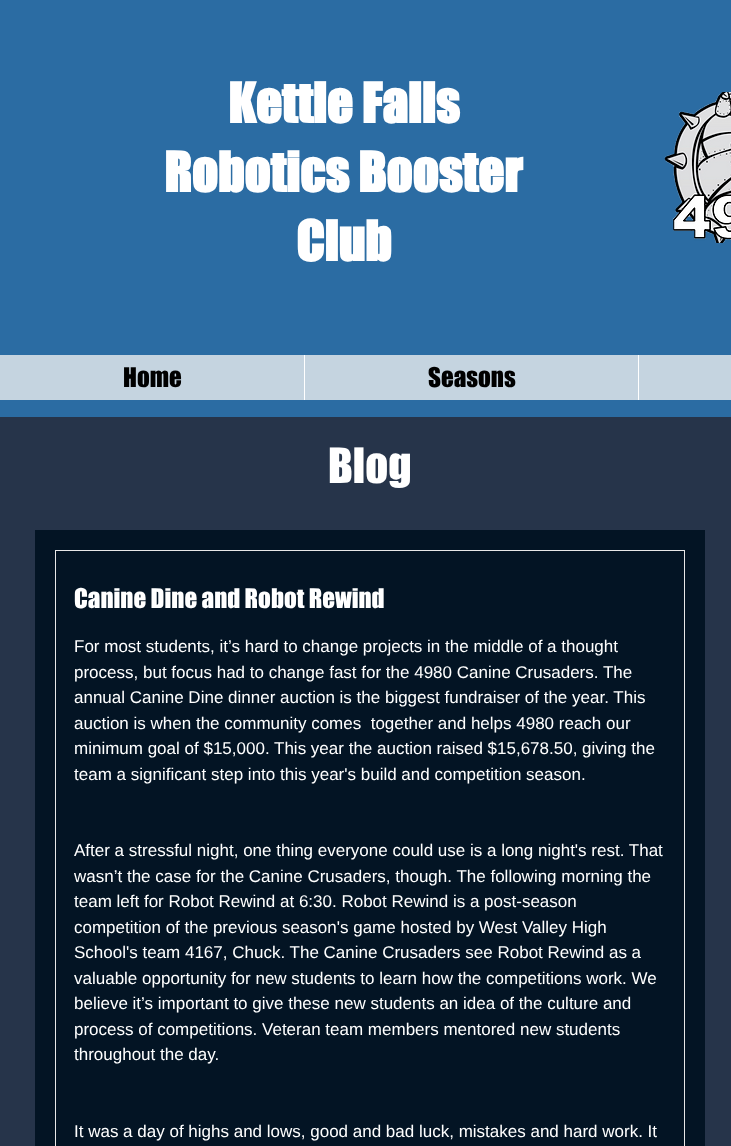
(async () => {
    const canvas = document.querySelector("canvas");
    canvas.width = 731;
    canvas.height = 1146;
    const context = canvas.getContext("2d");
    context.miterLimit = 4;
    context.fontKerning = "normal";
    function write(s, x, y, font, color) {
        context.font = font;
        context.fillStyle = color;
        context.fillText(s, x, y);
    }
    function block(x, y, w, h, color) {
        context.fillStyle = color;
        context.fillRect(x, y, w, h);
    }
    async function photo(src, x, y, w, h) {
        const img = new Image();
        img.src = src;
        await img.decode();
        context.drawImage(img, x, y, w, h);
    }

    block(0, 0, 731, 1146, "rgb(38, 52, 74)");
    block(0, 0, 731, 417, "rgb(43, 108, 163)");
    write("Kettle Falls", 228, 123, "bold 51px 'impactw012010'", "rgb(255, 255, 255)");
    write("Robotics Booster", 164, 192, "bold 51px 'impactw012010'", "rgb(255, 255, 255)");
    write("Club", 296, 261, "bold 51px 'impactw012010'", "rgb(255, 255, 255)");
    await photo("media/1.png", 664, 92, 67, 151);
    block(0, 355, 731, 45, "rgb(197, 212, 224)");
    write("Home", 123, 387, "25px 'impactw012010'", "rgb(0, 0, 0)");
    block(304, 355, 1, 45, "rgb(255, 255, 255)");
    write("Seasons", 428, 387, "25px 'impactw012010'", "rgb(0, 0, 0)");
    block(638, 355, 1, 45, "rgb(255, 255, 255)");
    write("Blog", 328, 483, "45px 'impactw012010'", "rgb(255, 255, 255)");
    block(35, 530, 670, 616, "rgb(3, 20, 36)");
    context.strokeStyle = "rgb(232, 232, 232)";
    context.strokeRect(55.5, 550.5, 629, 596);
    write("Canine Dine and Robot Rewind", 74, 608, "25px 'impactw012010'", "rgb(255, 255, 255)");
    write("For most students, it’s hard to change projects in the middle of a thought", 74, 652, "17px Liberation Sans", "rgb(255, 255, 255)");
    write("process, but focus had to change fast for the 4980 Canine Crusaders. The", 74, 678, "17px Liberation Sans", "rgb(255, 255, 255)");
    write("annual Canine Dine dinner auction is the biggest fundraiser of the year. This", 74, 703, "17px Liberation Sans", "rgb(255, 255, 255)");
    write("auction is when the community comes  together and helps 4980 reach our", 74, 729, "17px Liberation Sans", "rgb(255, 255, 255)");
    write("minimum goal of $15,000. This year the auction raised $15,678.50, giving the", 74, 754, "17px Liberation Sans", "rgb(255, 255, 255)");
    write("team a significant step into this year's build and competition season.", 74, 780, "17px Liberation Sans", "rgb(255, 255, 255)");
    write("After a stressful night, one thing everyone could use is a long night's rest. That", 74, 856, "17px Liberation Sans", "rgb(255, 255, 255)");
    write("wasn’t the case for the Canine Crusaders, though. The following morning the", 74, 882, "17px Liberation Sans", "rgb(255, 255, 255)");
    write("team left for Robot Rewind at 6:30. Robot Rewind is a post-season", 74, 907, "17px Liberation Sans", "rgb(255, 255, 255)");
    write("competition of the previous season's game hosted by West Valley High", 74, 933, "17px Liberation Sans", "rgb(255, 255, 255)");
    write("School's team 4167, Chuck. The Canine Crusaders see Robot Rewind as a", 74, 958, "17px Liberation Sans", "rgb(255, 255, 255)");
    write("valuable opportunity for new students to learn how the competitions work. We", 74, 984, "17px Liberation Sans", "rgb(255, 255, 255)");
    write("believe it’s important to give these new students an idea of the culture and", 74, 1009, "17px Liberation Sans", "rgb(255, 255, 255)");
    write("process of competitions. Veteran team members mentored new students", 74, 1035, "17px Liberation Sans", "rgb(255, 255, 255)");
    write("throughout the day.", 74, 1060, "17px Liberation Sans", "rgb(255, 255, 255)");
    write("It was a day of highs and lows, good and bad luck, mistakes and hard work. It", 74, 1137, "17px Liberation Sans", "rgb(255, 255, 255)");
})();
